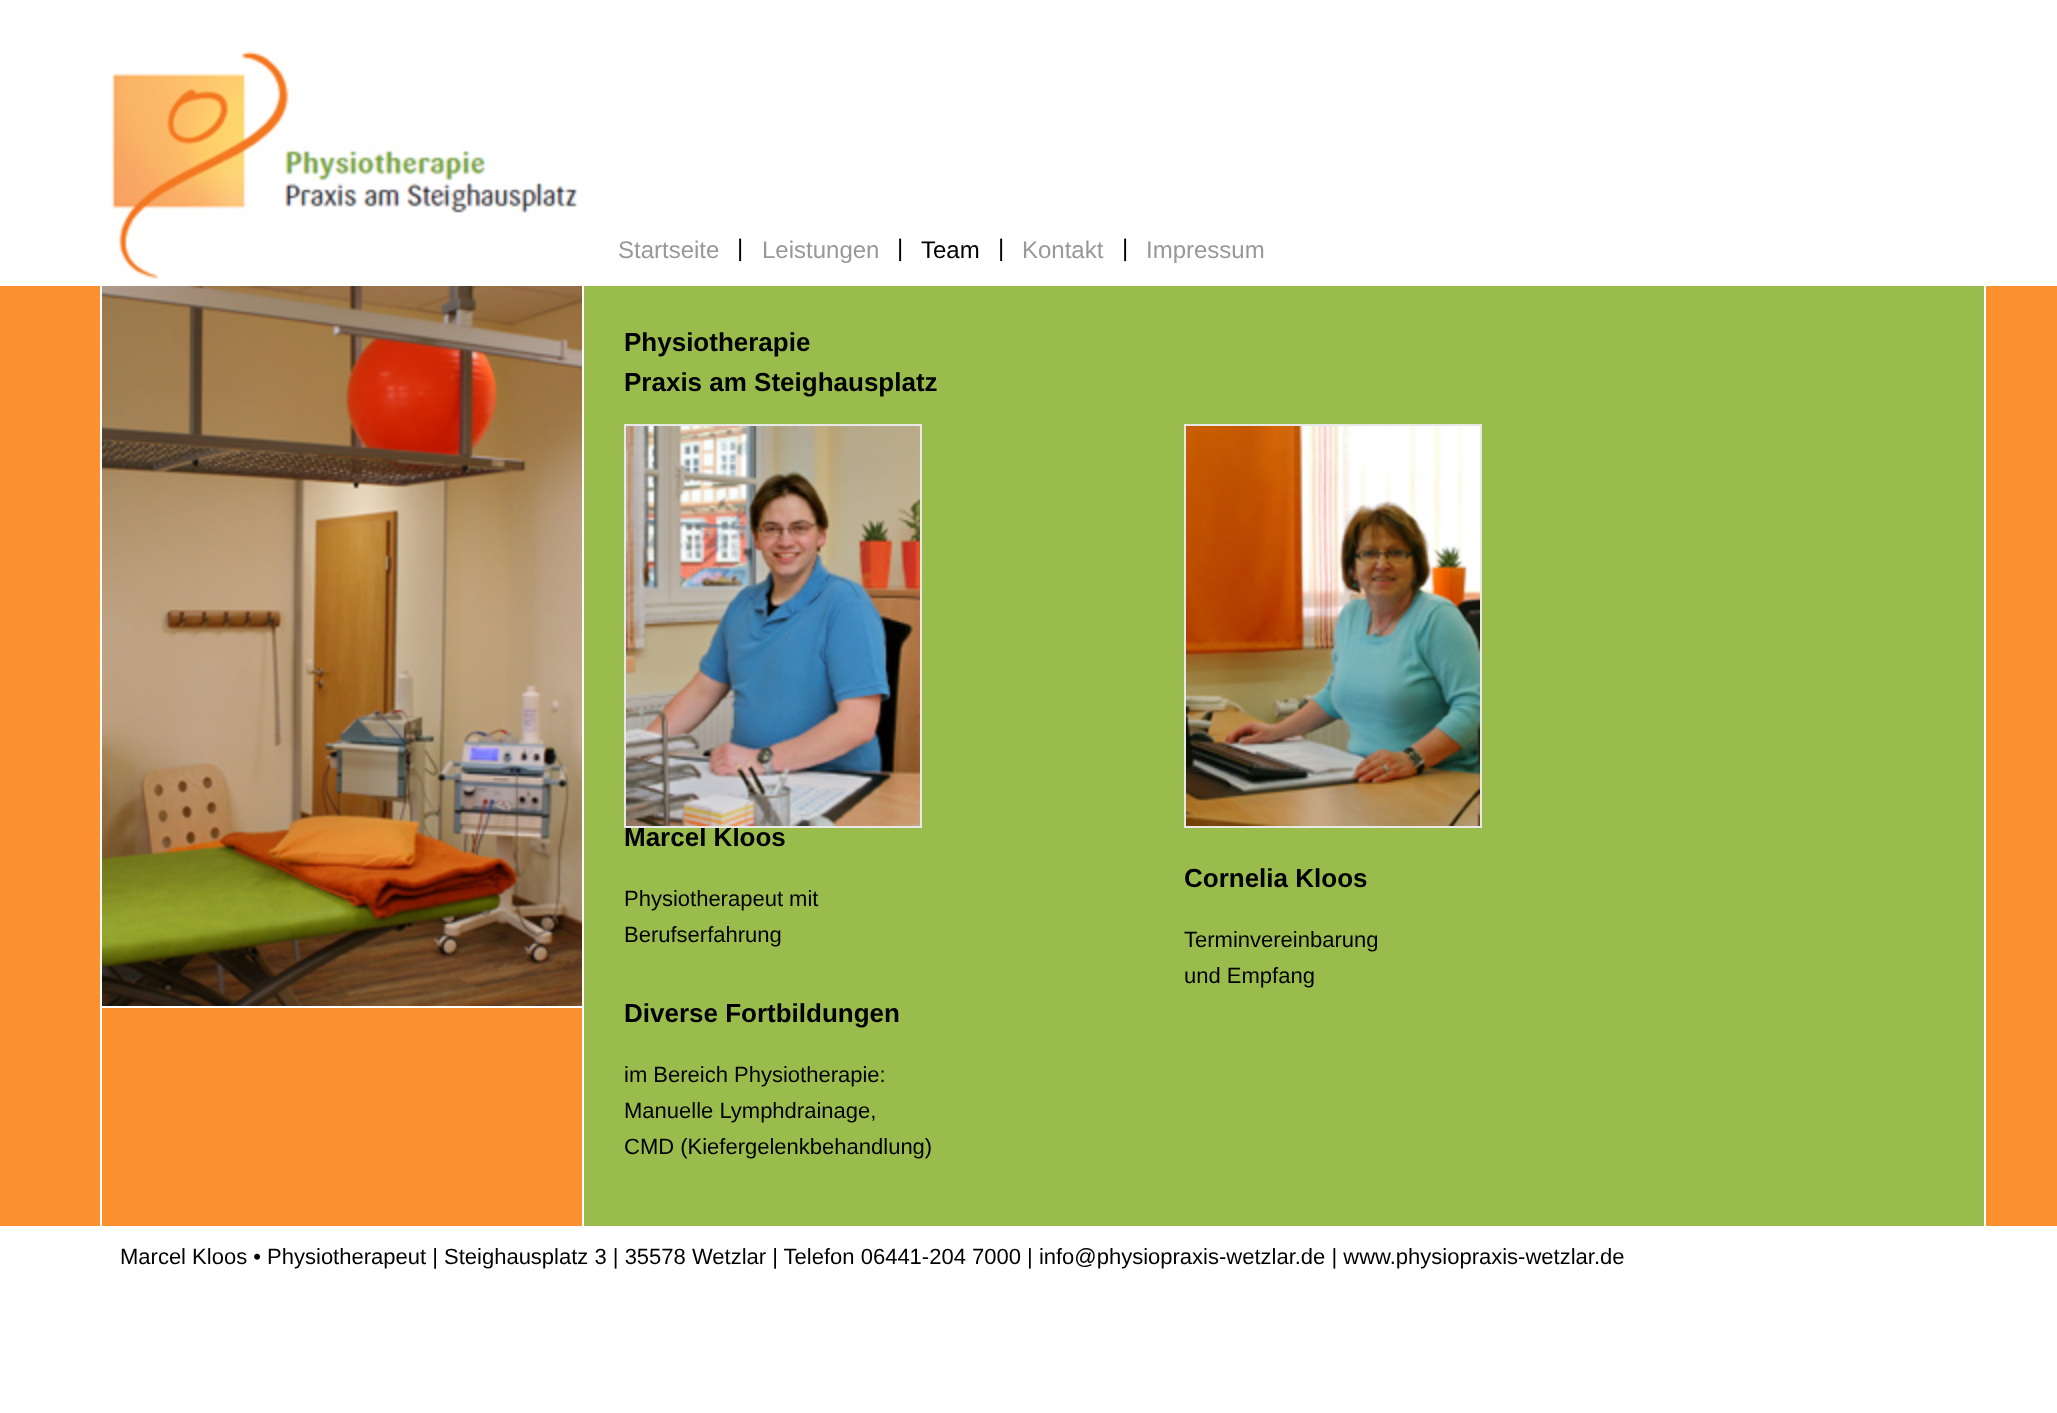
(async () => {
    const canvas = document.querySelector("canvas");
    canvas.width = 2057;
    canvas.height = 1413;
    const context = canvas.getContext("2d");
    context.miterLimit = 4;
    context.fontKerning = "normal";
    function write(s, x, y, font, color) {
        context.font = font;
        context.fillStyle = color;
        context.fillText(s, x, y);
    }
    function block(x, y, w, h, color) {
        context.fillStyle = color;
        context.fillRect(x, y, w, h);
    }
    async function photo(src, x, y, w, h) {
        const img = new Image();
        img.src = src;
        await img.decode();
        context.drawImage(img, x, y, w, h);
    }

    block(0, 0, 2057, 1413, "rgb(255, 255, 255)");
    block(0, 286, 2057, 940, "rgb(253, 145, 47)");
    await photo("media/1.png", 111, 51, 468, 228);
    write("Startseite", 618, 258, "24px Liberation Sans", "rgb(152, 152, 152)");
    write("|", 737, 256, "24px Liberation Sans", "rgb(0, 0, 0)");
    write("Leistungen", 762, 258, "24px Liberation Sans", "rgb(152, 152, 152)");
    write("|", 897, 256, "24px Liberation Sans", "rgb(0, 0, 0)");
    write("Team", 921, 258, "24px Liberation Sans", "rgb(0, 0, 0)");
    write("|", 998, 256, "24px Liberation Sans", "rgb(0, 0, 0)");
    write("Kontakt", 1022, 258, "24px Liberation Sans", "rgb(152, 152, 152)");
    write("|", 1122, 256, "24px Liberation Sans", "rgb(0, 0, 0)");
    write("Impressum", 1146, 258, "24px Liberation Sans", "rgb(152, 152, 152)");
    block(1984, 286, 2, 940, "rgb(255, 255, 255)");
    block(100, 286, 484, 940, "rgb(255, 255, 255)");
    await photo("media/2.png", 102, 286, 480, 720);
    block(102, 1008, 480, 218, "rgb(253, 145, 47)");
    block(584, 286, 1400, 940, "rgb(153, 188, 77)");
    write("Physiotherapie", 624, 351, "bold 26px Liberation Sans", "rgb(0, 0, 0)");
    write("Praxis am Steighausplatz", 624, 391, "bold 26px Liberation Sans", "rgb(0, 0, 0)");
    write("Marcel Kloos", 624, 846, "bold 26px Liberation Sans", "rgb(0, 0, 0)");
    context.strokeStyle = "rgb(232, 232, 232)";
    context.lineWidth = 2;
    context.strokeRect(625, 425, 296, 402);
    await photo("media/3.png", 626, 426, 294, 400);
    context.strokeRect(1185, 425, 296, 402);
    await photo("media/4.png", 1186, 426, 294, 400);
    write("Physiotherapeut mit", 624, 906, "22px Liberation Sans", "rgb(0, 0, 0)");
    write("Berufserfahrung", 624, 942, "22px Liberation Sans", "rgb(0, 0, 0)");
    write("Cornelia Kloos", 1184, 887, "bold 26px Liberation Sans", "rgb(0, 0, 0)");
    write("Terminvereinbarung", 1184, 947, "22px Liberation Sans", "rgb(0, 0, 0)");
    write("und Empfang", 1184, 983, "22px Liberation Sans", "rgb(0, 0, 0)");
    write("Diverse Fortbildungen", 624, 1022, "bold 26px Liberation Sans", "rgb(0, 0, 0)");
    write("im Bereich Physiotherapie:", 624, 1082, "22px Liberation Sans", "rgb(0, 0, 0)");
    write("Manuelle Lymphdrainage,", 624, 1118, "22px Liberation Sans", "rgb(0, 0, 0)");
    write("CMD (Kiefergelenkbehandlung)", 624, 1154, "22px Liberation Sans", "rgb(0, 0, 0)");
    write("Marcel Kloos • Physiotherapeut | Steighausplatz 3 | 35578 Wetzlar | Telefon 06441-204 7000 | info@physiopraxis-wetzlar.de | www.physiopraxis-wetzlar.de", 120, 1264, "22px Liberation Sans", "rgb(0, 0, 0)");
})();
